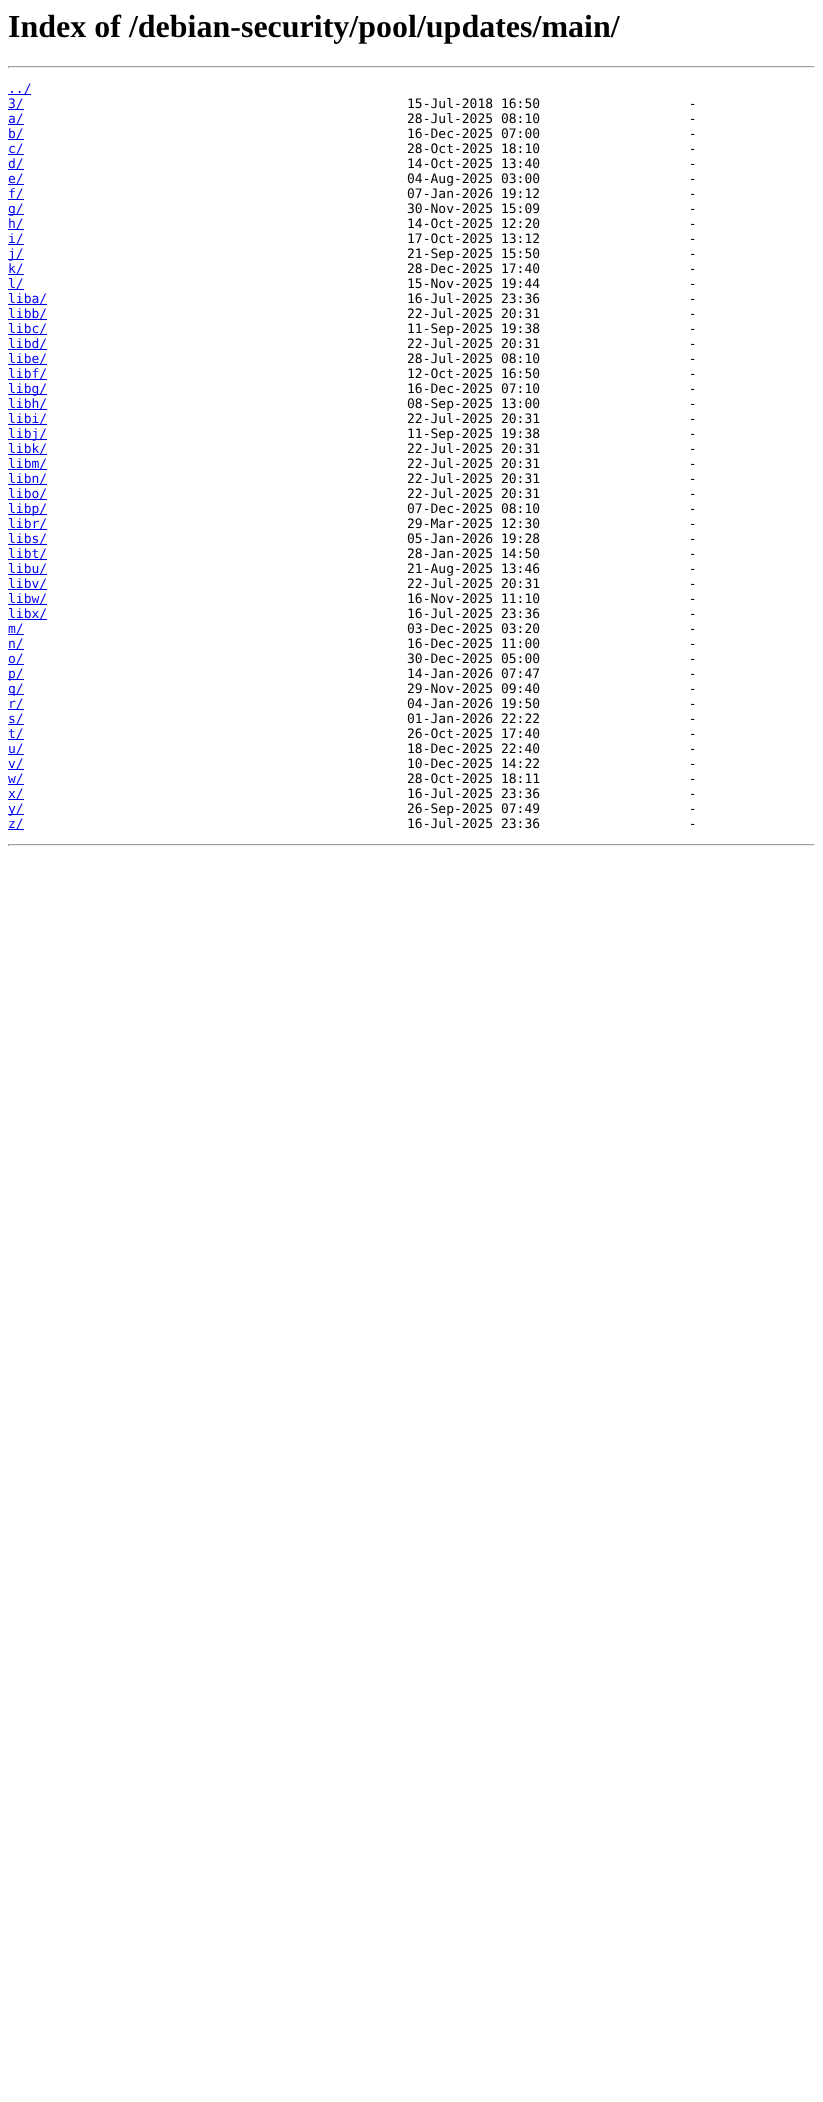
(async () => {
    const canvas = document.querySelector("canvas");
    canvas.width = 823;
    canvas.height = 2102;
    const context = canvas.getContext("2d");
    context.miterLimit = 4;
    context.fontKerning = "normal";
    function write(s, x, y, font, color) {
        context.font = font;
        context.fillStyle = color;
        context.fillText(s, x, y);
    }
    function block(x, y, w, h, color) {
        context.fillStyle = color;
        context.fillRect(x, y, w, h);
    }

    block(0, 0, 823, 2102, "rgb(255, 255, 255)");
    write("Index of /debian-security/pool/updates/main/", 8, 37, "bold 32px Liberation Serif", "rgb(0, 0, 0)");
    block(8, 66, 807, 1, "rgb(159, 159, 159)");
    block(814, 66, 1, 2, "rgb(238, 238, 238)");
    block(8, 67, 807, 1, "rgb(238, 238, 238)");
    block(8, 66, 1, 2, "rgb(159, 159, 159)");
    block(8, 94, 23, 1, "rgb(0, 0, 238)");
    write("../", 8, 93, "13px DejaVu Sans Mono", "rgb(0, 0, 238)");
    block(8, 109, 16, 1, "rgb(0, 0, 238)");
    write("3/", 8, 108, "13px DejaVu Sans Mono", "rgb(0, 0, 238)");
    write("15-Jul-2018 16:50                   -", 407, 108, "13px DejaVu Sans Mono", "rgb(0, 0, 0)");
    block(8, 124, 16, 1, "rgb(0, 0, 238)");
    write("a/", 8, 123, "13px DejaVu Sans Mono", "rgb(0, 0, 238)");
    write("28-Jul-2025 08:10                   -", 407, 123, "13px DejaVu Sans Mono", "rgb(0, 0, 0)");
    block(8, 139, 16, 1, "rgb(0, 0, 238)");
    write("b/", 8, 138, "13px DejaVu Sans Mono", "rgb(0, 0, 238)");
    write("16-Dec-2025 07:00                   -", 407, 138, "13px DejaVu Sans Mono", "rgb(0, 0, 0)");
    block(8, 154, 16, 1, "rgb(0, 0, 238)");
    write("c/", 8, 153, "13px DejaVu Sans Mono", "rgb(0, 0, 238)");
    write("28-Oct-2025 18:10                   -", 407, 153, "13px DejaVu Sans Mono", "rgb(0, 0, 0)");
    block(8, 169, 16, 1, "rgb(0, 0, 238)");
    write("d/", 8, 168, "13px DejaVu Sans Mono", "rgb(0, 0, 238)");
    write("14-Oct-2025 13:40                   -", 407, 168, "13px DejaVu Sans Mono", "rgb(0, 0, 0)");
    block(8, 184, 16, 1, "rgb(0, 0, 238)");
    write("e/", 8, 183, "13px DejaVu Sans Mono", "rgb(0, 0, 238)");
    write("04-Aug-2025 03:00                   -", 407, 183, "13px DejaVu Sans Mono", "rgb(0, 0, 0)");
    block(8, 199, 16, 1, "rgb(0, 0, 238)");
    write("f/", 8, 198, "13px DejaVu Sans Mono", "rgb(0, 0, 238)");
    write("07-Jan-2026 19:12                   -", 407, 198, "13px DejaVu Sans Mono", "rgb(0, 0, 0)");
    block(8, 214, 16, 1, "rgb(0, 0, 238)");
    write("g/", 8, 213, "13px DejaVu Sans Mono", "rgb(0, 0, 238)");
    write("30-Nov-2025 15:09                   -", 407, 213, "13px DejaVu Sans Mono", "rgb(0, 0, 0)");
    block(8, 229, 16, 1, "rgb(0, 0, 238)");
    write("h/", 8, 228, "13px DejaVu Sans Mono", "rgb(0, 0, 238)");
    write("14-Oct-2025 12:20                   -", 407, 228, "13px DejaVu Sans Mono", "rgb(0, 0, 0)");
    block(8, 244, 16, 1, "rgb(0, 0, 238)");
    write("i/", 8, 243, "13px DejaVu Sans Mono", "rgb(0, 0, 238)");
    write("17-Oct-2025 13:12                   -", 407, 243, "13px DejaVu Sans Mono", "rgb(0, 0, 0)");
    block(8, 259, 16, 1, "rgb(0, 0, 238)");
    write("j/", 8, 258, "13px DejaVu Sans Mono", "rgb(0, 0, 238)");
    write("21-Sep-2025 15:50                   -", 407, 258, "13px DejaVu Sans Mono", "rgb(0, 0, 0)");
    block(8, 274, 16, 1, "rgb(0, 0, 238)");
    write("k/", 8, 273, "13px DejaVu Sans Mono", "rgb(0, 0, 238)");
    write("28-Dec-2025 17:40                   -", 407, 273, "13px DejaVu Sans Mono", "rgb(0, 0, 0)");
    block(8, 289, 16, 1, "rgb(0, 0, 238)");
    write("l/", 8, 288, "13px DejaVu Sans Mono", "rgb(0, 0, 238)");
    write("15-Nov-2025 19:44                   -", 407, 288, "13px DejaVu Sans Mono", "rgb(0, 0, 0)");
    block(8, 304, 39, 1, "rgb(0, 0, 238)");
    write("liba/", 8, 303, "13px DejaVu Sans Mono", "rgb(0, 0, 238)");
    write("16-Jul-2025 23:36                   -", 407, 303, "13px DejaVu Sans Mono", "rgb(0, 0, 0)");
    block(8, 319, 39, 1, "rgb(0, 0, 238)");
    write("libb/", 8, 318, "13px DejaVu Sans Mono", "rgb(0, 0, 238)");
    write("22-Jul-2025 20:31                   -", 407, 318, "13px DejaVu Sans Mono", "rgb(0, 0, 0)");
    block(8, 334, 39, 1, "rgb(0, 0, 238)");
    write("libc/", 8, 333, "13px DejaVu Sans Mono", "rgb(0, 0, 238)");
    write("11-Sep-2025 19:38                   -", 407, 333, "13px DejaVu Sans Mono", "rgb(0, 0, 0)");
    block(8, 349, 39, 1, "rgb(0, 0, 238)");
    write("libd/", 8, 348, "13px DejaVu Sans Mono", "rgb(0, 0, 238)");
    write("22-Jul-2025 20:31                   -", 407, 348, "13px DejaVu Sans Mono", "rgb(0, 0, 0)");
    block(8, 364, 39, 1, "rgb(0, 0, 238)");
    write("libe/", 8, 363, "13px DejaVu Sans Mono", "rgb(0, 0, 238)");
    write("28-Jul-2025 08:10                   -", 407, 363, "13px DejaVu Sans Mono", "rgb(0, 0, 0)");
    block(8, 379, 39, 1, "rgb(0, 0, 238)");
    write("libf/", 8, 378, "13px DejaVu Sans Mono", "rgb(0, 0, 238)");
    write("12-Oct-2025 16:50                   -", 407, 378, "13px DejaVu Sans Mono", "rgb(0, 0, 0)");
    block(8, 394, 39, 1, "rgb(0, 0, 238)");
    write("libg/", 8, 393, "13px DejaVu Sans Mono", "rgb(0, 0, 238)");
    write("16-Dec-2025 07:10                   -", 407, 393, "13px DejaVu Sans Mono", "rgb(0, 0, 0)");
    block(8, 409, 39, 1, "rgb(0, 0, 238)");
    write("libh/", 8, 408, "13px DejaVu Sans Mono", "rgb(0, 0, 238)");
    write("08-Sep-2025 13:00                   -", 407, 408, "13px DejaVu Sans Mono", "rgb(0, 0, 0)");
    block(8, 424, 39, 1, "rgb(0, 0, 238)");
    write("libi/", 8, 423, "13px DejaVu Sans Mono", "rgb(0, 0, 238)");
    write("22-Jul-2025 20:31                   -", 407, 423, "13px DejaVu Sans Mono", "rgb(0, 0, 0)");
    block(8, 439, 39, 1, "rgb(0, 0, 238)");
    write("libj/", 8, 438, "13px DejaVu Sans Mono", "rgb(0, 0, 238)");
    write("11-Sep-2025 19:38                   -", 407, 438, "13px DejaVu Sans Mono", "rgb(0, 0, 0)");
    block(8, 454, 39, 1, "rgb(0, 0, 238)");
    write("libk/", 8, 453, "13px DejaVu Sans Mono", "rgb(0, 0, 238)");
    write("22-Jul-2025 20:31                   -", 407, 453, "13px DejaVu Sans Mono", "rgb(0, 0, 0)");
    block(8, 469, 39, 1, "rgb(0, 0, 238)");
    write("libm/", 8, 468, "13px DejaVu Sans Mono", "rgb(0, 0, 238)");
    write("22-Jul-2025 20:31                   -", 407, 468, "13px DejaVu Sans Mono", "rgb(0, 0, 0)");
    block(8, 484, 39, 1, "rgb(0, 0, 238)");
    write("libn/", 8, 483, "13px DejaVu Sans Mono", "rgb(0, 0, 238)");
    write("22-Jul-2025 20:31                   -", 407, 483, "13px DejaVu Sans Mono", "rgb(0, 0, 0)");
    block(8, 499, 39, 1, "rgb(0, 0, 238)");
    write("libo/", 8, 498, "13px DejaVu Sans Mono", "rgb(0, 0, 238)");
    write("22-Jul-2025 20:31                   -", 407, 498, "13px DejaVu Sans Mono", "rgb(0, 0, 0)");
    block(8, 514, 39, 1, "rgb(0, 0, 238)");
    write("libp/", 8, 513, "13px DejaVu Sans Mono", "rgb(0, 0, 238)");
    write("07-Dec-2025 08:10                   -", 407, 513, "13px DejaVu Sans Mono", "rgb(0, 0, 0)");
    block(8, 529, 39, 1, "rgb(0, 0, 238)");
    write("libr/", 8, 528, "13px DejaVu Sans Mono", "rgb(0, 0, 238)");
    write("29-Mar-2025 12:30                   -", 407, 528, "13px DejaVu Sans Mono", "rgb(0, 0, 0)");
    block(8, 544, 39, 1, "rgb(0, 0, 238)");
    write("libs/", 8, 543, "13px DejaVu Sans Mono", "rgb(0, 0, 238)");
    write("05-Jan-2026 19:28                   -", 407, 543, "13px DejaVu Sans Mono", "rgb(0, 0, 0)");
    block(8, 559, 39, 1, "rgb(0, 0, 238)");
    write("libt/", 8, 558, "13px DejaVu Sans Mono", "rgb(0, 0, 238)");
    write("28-Jan-2025 14:50                   -", 407, 558, "13px DejaVu Sans Mono", "rgb(0, 0, 0)");
    block(8, 574, 39, 1, "rgb(0, 0, 238)");
    write("libu/", 8, 573, "13px DejaVu Sans Mono", "rgb(0, 0, 238)");
    write("21-Aug-2025 13:46                   -", 407, 573, "13px DejaVu Sans Mono", "rgb(0, 0, 0)");
    block(8, 589, 39, 1, "rgb(0, 0, 238)");
    write("libv/", 8, 588, "13px DejaVu Sans Mono", "rgb(0, 0, 238)");
    write("22-Jul-2025 20:31                   -", 407, 588, "13px DejaVu Sans Mono", "rgb(0, 0, 0)");
    block(8, 604, 39, 1, "rgb(0, 0, 238)");
    write("libw/", 8, 603, "13px DejaVu Sans Mono", "rgb(0, 0, 238)");
    write("16-Nov-2025 11:10                   -", 407, 603, "13px DejaVu Sans Mono", "rgb(0, 0, 0)");
    block(8, 619, 39, 1, "rgb(0, 0, 238)");
    write("libx/", 8, 618, "13px DejaVu Sans Mono", "rgb(0, 0, 238)");
    write("16-Jul-2025 23:36                   -", 407, 618, "13px DejaVu Sans Mono", "rgb(0, 0, 0)");
    block(8, 634, 16, 1, "rgb(0, 0, 238)");
    write("m/", 8, 633, "13px DejaVu Sans Mono", "rgb(0, 0, 238)");
    write("03-Dec-2025 03:20                   -", 407, 633, "13px DejaVu Sans Mono", "rgb(0, 0, 0)");
    block(8, 649, 16, 1, "rgb(0, 0, 238)");
    write("n/", 8, 648, "13px DejaVu Sans Mono", "rgb(0, 0, 238)");
    write("16-Dec-2025 11:00                   -", 407, 648, "13px DejaVu Sans Mono", "rgb(0, 0, 0)");
    block(8, 664, 16, 1, "rgb(0, 0, 238)");
    write("o/", 8, 663, "13px DejaVu Sans Mono", "rgb(0, 0, 238)");
    write("30-Dec-2025 05:00                   -", 407, 663, "13px DejaVu Sans Mono", "rgb(0, 0, 0)");
    block(8, 679, 16, 1, "rgb(0, 0, 238)");
    write("p/", 8, 678, "13px DejaVu Sans Mono", "rgb(0, 0, 238)");
    write("14-Jan-2026 07:47                   -", 407, 678, "13px DejaVu Sans Mono", "rgb(0, 0, 0)");
    block(8, 694, 16, 1, "rgb(0, 0, 238)");
    write("q/", 8, 693, "13px DejaVu Sans Mono", "rgb(0, 0, 238)");
    write("29-Nov-2025 09:40                   -", 407, 693, "13px DejaVu Sans Mono", "rgb(0, 0, 0)");
    block(8, 709, 16, 1, "rgb(0, 0, 238)");
    write("r/", 8, 708, "13px DejaVu Sans Mono", "rgb(0, 0, 238)");
    write("04-Jan-2026 19:50                   -", 407, 708, "13px DejaVu Sans Mono", "rgb(0, 0, 0)");
    block(8, 724, 16, 1, "rgb(0, 0, 238)");
    write("s/", 8, 723, "13px DejaVu Sans Mono", "rgb(0, 0, 238)");
    write("01-Jan-2026 22:22                   -", 407, 723, "13px DejaVu Sans Mono", "rgb(0, 0, 0)");
    block(8, 739, 16, 1, "rgb(0, 0, 238)");
    write("t/", 8, 738, "13px DejaVu Sans Mono", "rgb(0, 0, 238)");
    write("26-Oct-2025 17:40                   -", 407, 738, "13px DejaVu Sans Mono", "rgb(0, 0, 0)");
    block(8, 754, 16, 1, "rgb(0, 0, 238)");
    write("u/", 8, 753, "13px DejaVu Sans Mono", "rgb(0, 0, 238)");
    write("18-Dec-2025 22:40                   -", 407, 753, "13px DejaVu Sans Mono", "rgb(0, 0, 0)");
    block(8, 769, 16, 1, "rgb(0, 0, 238)");
    write("v/", 8, 768, "13px DejaVu Sans Mono", "rgb(0, 0, 238)");
    write("10-Dec-2025 14:22                   -", 407, 768, "13px DejaVu Sans Mono", "rgb(0, 0, 0)");
    block(8, 784, 16, 1, "rgb(0, 0, 238)");
    write("w/", 8, 783, "13px DejaVu Sans Mono", "rgb(0, 0, 238)");
    write("28-Oct-2025 18:11                   -", 407, 783, "13px DejaVu Sans Mono", "rgb(0, 0, 0)");
    block(8, 799, 16, 1, "rgb(0, 0, 238)");
    write("x/", 8, 798, "13px DejaVu Sans Mono", "rgb(0, 0, 238)");
    write("16-Jul-2025 23:36                   -", 407, 798, "13px DejaVu Sans Mono", "rgb(0, 0, 0)");
    block(8, 814, 16, 1, "rgb(0, 0, 238)");
    write("y/", 8, 813, "13px DejaVu Sans Mono", "rgb(0, 0, 238)");
    write("26-Sep-2025 07:49                   -", 407, 813, "13px DejaVu Sans Mono", "rgb(0, 0, 0)");
    block(8, 829, 16, 1, "rgb(0, 0, 238)");
    write("z/", 8, 828, "13px DejaVu Sans Mono", "rgb(0, 0, 238)");
    write("16-Jul-2025 23:36                   -", 407, 828, "13px DejaVu Sans Mono", "rgb(0, 0, 0)");
    block(8, 844, 807, 1, "rgb(159, 159, 159)");
    block(814, 844, 1, 2, "rgb(238, 238, 238)");
    block(8, 845, 807, 1, "rgb(238, 238, 238)");
    block(8, 844, 1, 2, "rgb(159, 159, 159)");
})();
